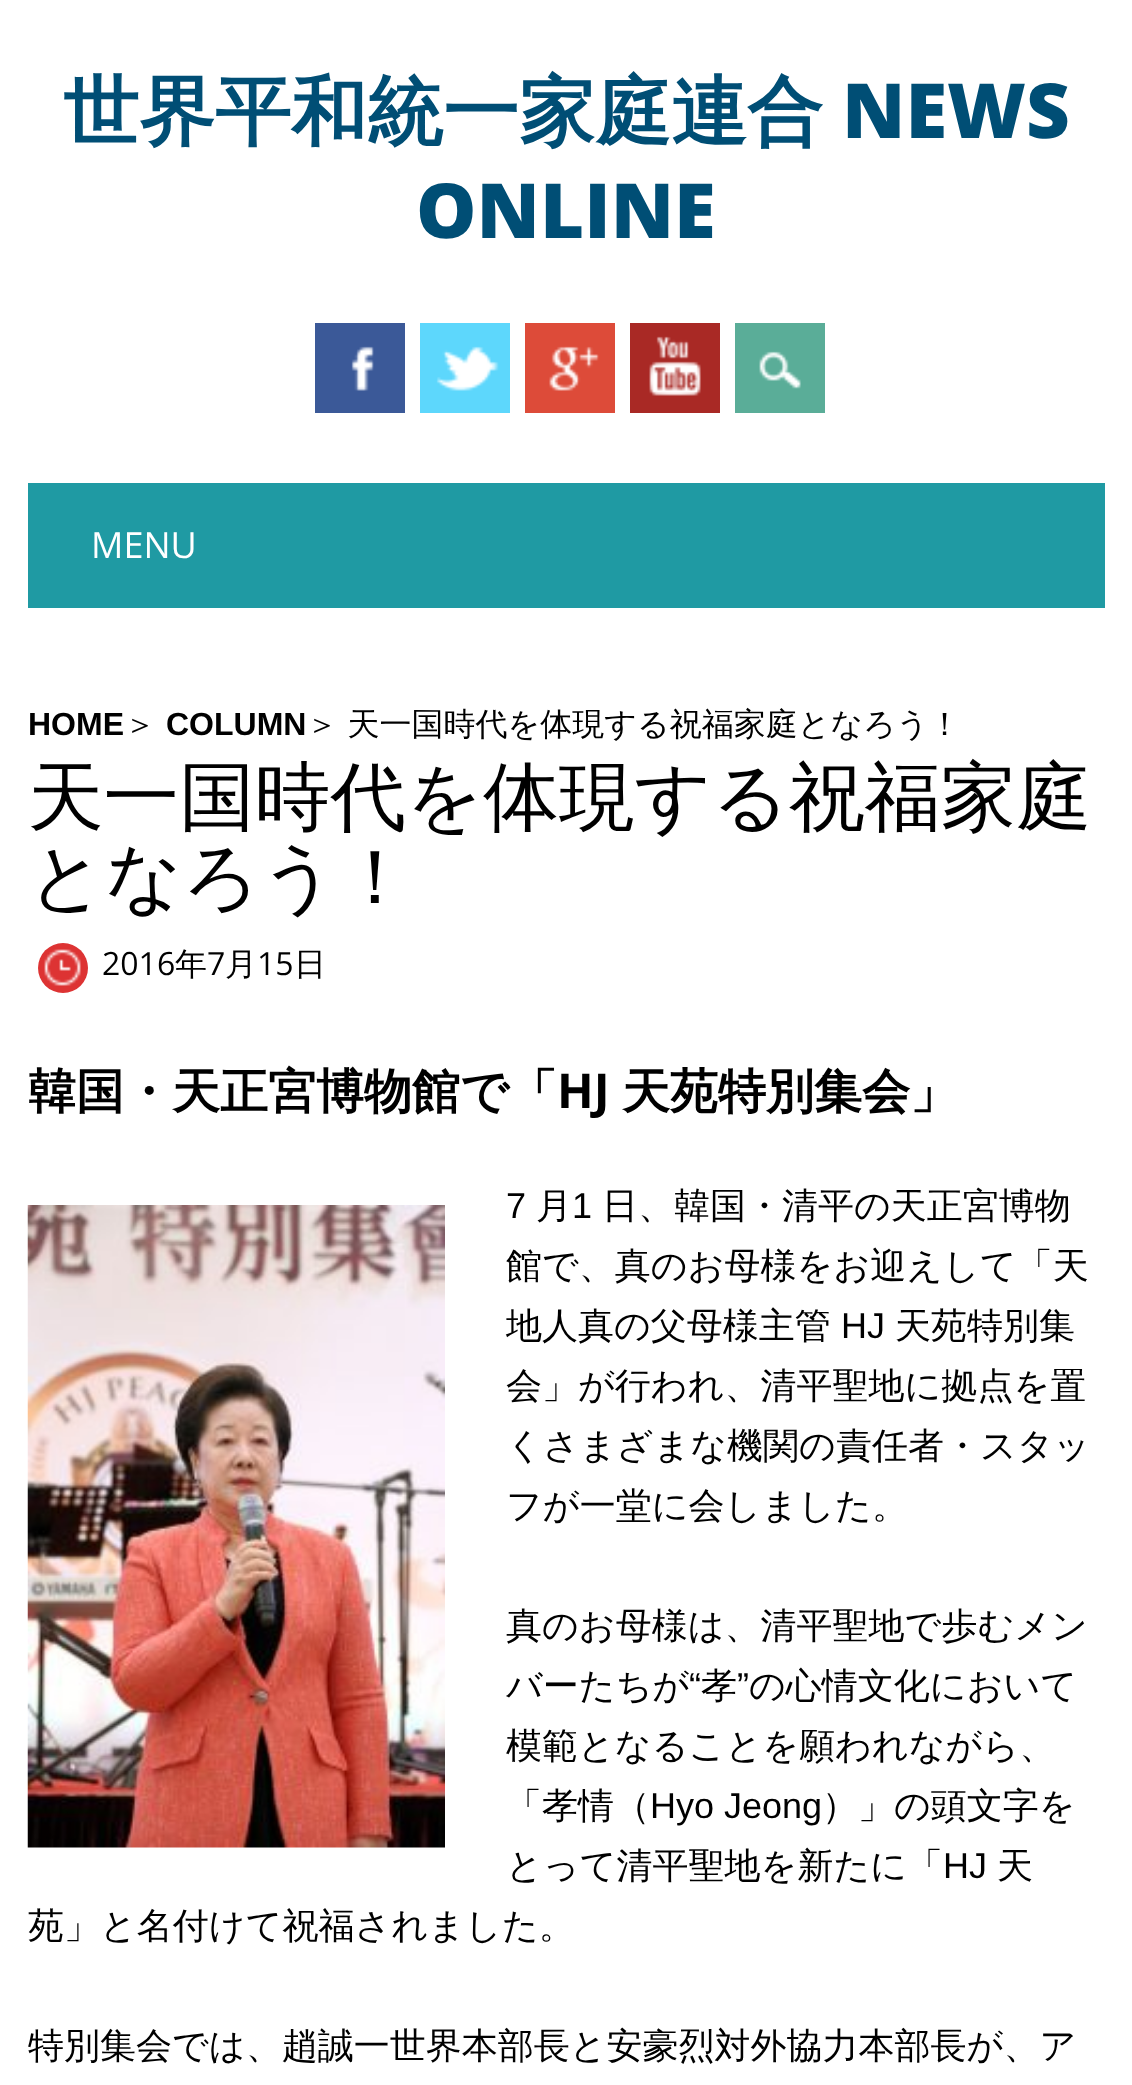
(async () => {
    const canvas = document.querySelector("canvas");
    canvas.width = 1132;
    canvas.height = 2085;
    const context = canvas.getContext("2d");
    context.miterLimit = 4;
    context.fontKerning = "normal";
    function write(s, x, y, font, color) {
        context.font = font;
        context.fillStyle = color;
        context.fillText(s, x, y);
    }
    function block(x, y, w, h, color) {
        context.fillStyle = color;
        context.fillRect(x, y, w, h);
    }
    async function photo(src, x, y, w, h) {
        const img = new Image();
        img.src = src;
        await img.decode();
        context.drawImage(img, x, y, w, h);
    }

    block(0, 0, 1132, 2085, "rgb(255, 255, 255)");
    write("世界平和統一家庭連合", 63, 138, "bold 76px WenQuanYi Zen Hei", "rgb(0, 78, 117)");
    write("NEWS", 842, 138, "800 76px Open Sans", "rgb(0, 78, 117)");
    write("ONLINE", 416, 238, "800 76px Open Sans", "rgb(0, 78, 117)");
    block(315, 323, 90, 90, "rgb(59, 89, 152)");
    await photo("media/1.png", 351, 346, 23, 45);
    block(420, 323, 90, 90, "rgb(93, 215, 252)");
    await photo("media/2.png", 436, 346, 63, 45);
    block(525, 323, 90, 90, "rgb(221, 75, 57)");
    await photo("media/3.png", 549, 346, 50, 45);
    block(630, 323, 90, 90, "rgb(169, 41, 37)");
    await photo("media/4.png", 649, 336, 52, 60);
    block(735, 323, 90, 90, "rgb(90, 173, 152)");
    await photo("media/5.png", 759, 351, 42, 38);
    block(28, 483, 1077, 125, "rgb(31, 154, 163)");
    write("MENU", 91, 558, "36px Open Sans", "rgb(255, 255, 255)");
    write("HOME", 28, 735, "bold 32px Liberation Sans", "rgb(0, 0, 0)");
    write("＞", 124, 735, "500 32px WenQuanYi Zen Hei", "rgb(0, 0, 0)");
    write("COLUMN", 166, 735, "bold 32px Liberation Sans", "rgb(0, 0, 0)");
    write("＞ 天一国時代を体現する祝福家庭となろう！", 306, 735, "500 32px WenQuanYi Zen Hei", "rgb(0, 0, 0)");
    write("天一国時代を体現する祝福家庭", 28, 823, "500 75.6px WenQuanYi Zen Hei", "rgb(0, 0, 0)");
    write("となろう！", 28, 903, "500 75.6px WenQuanYi Zen Hei", "rgb(0, 0, 0)");
    context.fillStyle = "rgb(221, 51, 51)";
    context.beginPath();
    context.arc(63, 968, 25, 0, Math.PI * 2);
    context.fill();
    await photo("media/6.png", 44, 949, 37, 37);
    write("2016", 102, 975, "32px Open Sans", "rgb(0, 0, 0)");
    write("年", 175, 975, "500 32px WenQuanYi Zen Hei", "rgb(0, 0, 0)");
    write("7", 207, 975, "32px Open Sans", "rgb(0, 0, 0)");
    write("月", 225, 975, "500 32px WenQuanYi Zen Hei", "rgb(0, 0, 0)");
    write("15", 257, 975, "32px Open Sans", "rgb(0, 0, 0)");
    write("日", 294, 975, "500 32px WenQuanYi Zen Hei", "rgb(0, 0, 0)");
    write("韓国・天正宮博物館で「", 28, 1108, "bold 48px WenQuanYi Zen Hei", "rgb(0, 0, 0)");
    write("HJ", 557, 1108, "bold 48px Open Sans", "rgb(0, 0, 0)");
    write("天苑特別集会」", 622, 1108, "bold 48px WenQuanYi Zen Hei", "rgb(0, 0, 0)");
    await photo("media/7.png", 27, 1205, 418, 643);
    write("7", 506, 1218, "36px Liberation Sans", "rgb(0, 0, 0)");
    write("月", 536, 1218, "500 36px WenQuanYi Zen Hei", "rgb(0, 0, 0)");
    write("1", 572, 1218, "36px Liberation Sans", "rgb(0, 0, 0)");
    write("日、韓国・清平の天正宮博物", 602, 1218, "500 36px WenQuanYi Zen Hei", "rgb(0, 0, 0)");
    write("館で、真のお母様をお迎えして「天", 506, 1278, "500 36px WenQuanYi Zen Hei", "rgb(0, 0, 0)");
    write("地人真の父母様主管", 506, 1338, "500 36px WenQuanYi Zen Hei", "rgb(0, 0, 0)");
    write("HJ", 841, 1338, "36px Liberation Sans", "rgb(0, 0, 0)");
    write("天苑特別集", 895, 1338, "500 36px WenQuanYi Zen Hei", "rgb(0, 0, 0)");
    write("会」が行われ、清平聖地に拠点を置", 506, 1398, "500 36px WenQuanYi Zen Hei", "rgb(0, 0, 0)");
    write("くさまざまな機関の責任者・スタッ", 506, 1458, "500 36px WenQuanYi Zen Hei", "rgb(0, 0, 0)");
    write("フが一堂に会しました。", 506, 1518, "500 36px WenQuanYi Zen Hei", "rgb(0, 0, 0)");
    write("真のお母様は、清平聖地で歩むメン", 506, 1638, "500 36px WenQuanYi Zen Hei", "rgb(0, 0, 0)");
    write("バーたちが", 506, 1698, "500 36px WenQuanYi Zen Hei", "rgb(0, 0, 0)");
    write("“", 689, 1698, "36px Liberation Sans", "rgb(0, 0, 0)");
    write("孝", 701, 1698, "500 36px WenQuanYi Zen Hei", "rgb(0, 0, 0)");
    write("”", 737, 1698, "36px Liberation Sans", "rgb(0, 0, 0)");
    write("の心情文化において", 749, 1698, "500 36px WenQuanYi Zen Hei", "rgb(0, 0, 0)");
    write("模範となることを願われながら、", 506, 1758, "500 36px WenQuanYi Zen Hei", "rgb(0, 0, 0)");
    write("「孝情（", 506, 1818, "500 36px WenQuanYi Zen Hei", "rgb(0, 0, 0)");
    write("Hyo Jeong", 650, 1818, "36px Liberation Sans", "rgb(0, 0, 0)");
    write("）」の頭文字を", 822, 1818, "500 36px WenQuanYi Zen Hei", "rgb(0, 0, 0)");
    write("とって清平聖地を新たに「", 506, 1878, "500 36px WenQuanYi Zen Hei", "rgb(0, 0, 0)");
    write("HJ", 943, 1878, "36px Liberation Sans", "rgb(0, 0, 0)");
    write("天", 997, 1878, "500 36px WenQuanYi Zen Hei", "rgb(0, 0, 0)");
    write("苑」と名付けて祝福されました。", 28, 1938, "500 36px WenQuanYi Zen Hei", "rgb(0, 0, 0)");
    write("特別集会では、趙誠一世界本部長と安豪烈対外協力本部長が、ア", 28, 2058, "500 36px WenQuanYi Zen Hei", "rgb(0, 0, 0)");
})();
